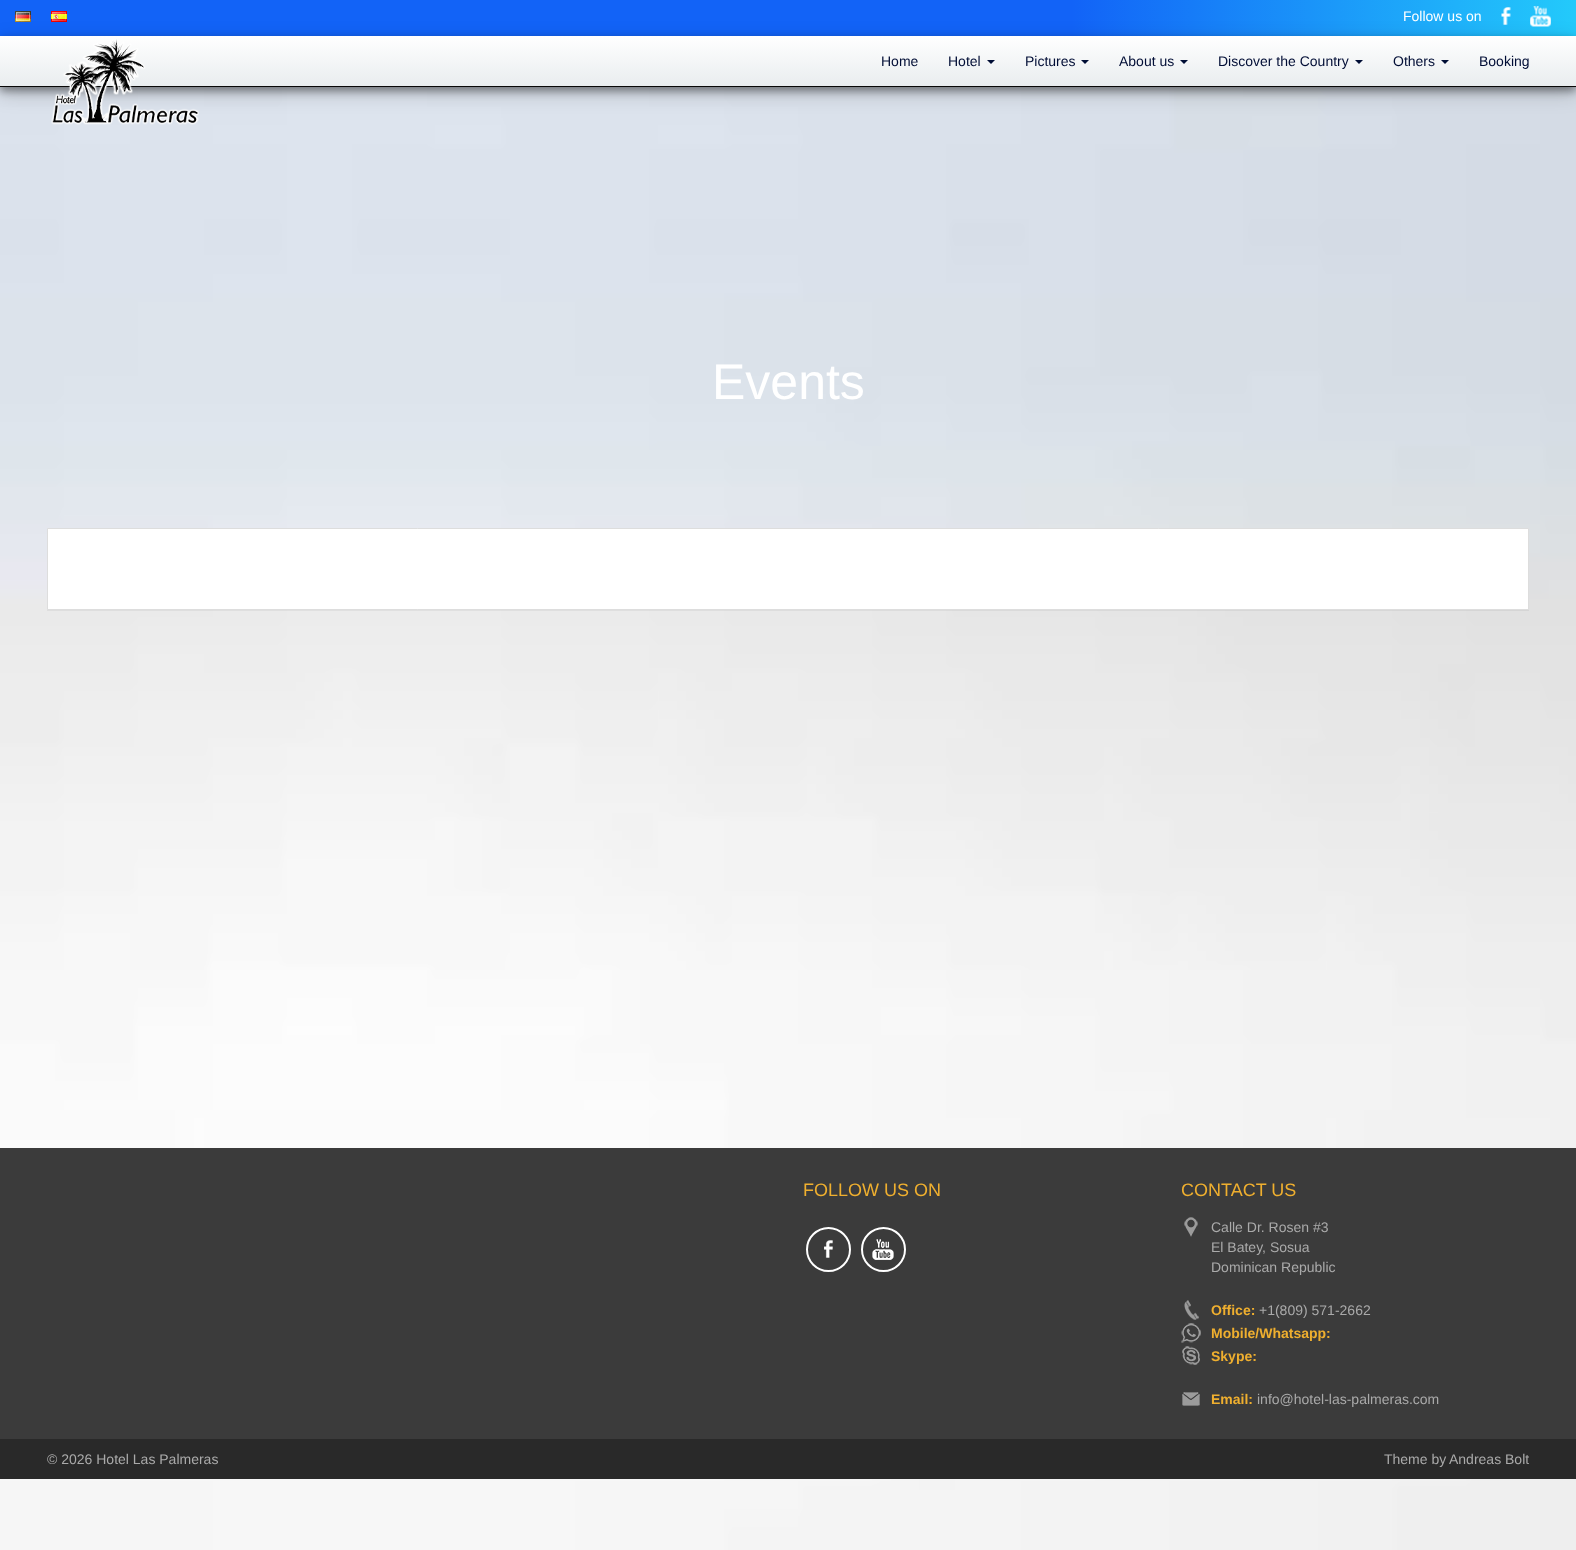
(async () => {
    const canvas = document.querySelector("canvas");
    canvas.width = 1576;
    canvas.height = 1550;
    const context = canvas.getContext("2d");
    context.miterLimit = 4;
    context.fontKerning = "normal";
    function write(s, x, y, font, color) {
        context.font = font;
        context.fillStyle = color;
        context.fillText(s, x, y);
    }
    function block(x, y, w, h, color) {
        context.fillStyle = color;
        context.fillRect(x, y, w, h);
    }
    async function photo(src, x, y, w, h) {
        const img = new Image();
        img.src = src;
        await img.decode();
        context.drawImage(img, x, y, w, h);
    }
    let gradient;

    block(0, 0, 1576, 1550, "rgb(255, 255, 255)");
    await photo("media/1.png", 0, 87, 1576, 1463);
    gradient = context.createLinearGradient(0, 18, 1576, 18);
    gradient.addColorStop(0.68, "rgb(18, 99, 247)");
    gradient.addColorStop(1, "rgb(35, 202, 251)");
    context.fillStyle = gradient;
    context.fillRect(0, 0, 1576, 36);
    context.fillStyle = "rgba(0, 0, 0, 0.19)";
    context.filter = "blur(10px)";
    context.beginPath();
    context.rect(0, 42, 1576, 51);
    context.fill();
    context.filter = "none";
    await photo("media/2.png", 15, 11, 16, 11);
    await photo("media/3.png", 51, 11, 16, 11);
    write("Follow us on", 1403, 21, "14px Liberation Sans", "rgb(255, 255, 255)");
    await photo("media/4.png", 1501, 7, 10, 18);
    await photo("media/5.png", 1530, 6, 21, 21);
    context.fillStyle = "rgba(0, 0, 0, 0.4)";
    context.filter = "blur(4px)";
    context.beginPath();
    context.rect(0, 40, 1576, 51);
    context.fill();
    context.filter = "none";
    gradient = context.createLinearGradient(788, 36, 788, 86);
    gradient.addColorStop(0, "rgb(255, 255, 255)");
    gradient.addColorStop(1, "rgb(233, 237, 239)");
    context.fillStyle = gradient;
    context.fillRect(0, 36, 1576, 50);
    block(0, 86, 1576, 1, "rgb(8, 8, 8)");
    await photo("media/6.png", 51, 39, 148, 86);
    write("Home", 881, 66, "14px Liberation Sans", "rgb(0, 13, 53)");
    write("Hotel", 948, 66, "14px Liberation Sans", "rgb(0, 13, 53)");
    context.beginPath();
    context.moveTo(987, 60);
    context.lineTo(995, 60);
    context.lineTo(991, 64);
    context.closePath();
    context.fill();
    write("Pictures", 1025, 66, "14px Liberation Sans", "rgb(0, 13, 53)");
    context.beginPath();
    context.moveTo(1081, 60);
    context.lineTo(1089, 60);
    context.lineTo(1085, 64);
    context.closePath();
    context.fill();
    write("About us", 1119, 66, "14px Liberation Sans", "rgb(0, 13, 53)");
    context.beginPath();
    context.moveTo(1180, 60);
    context.lineTo(1188, 60);
    context.lineTo(1184, 64);
    context.closePath();
    context.fill();
    write("Discover the Country", 1218, 66, "14px Liberation Sans", "rgb(0, 13, 53)");
    context.beginPath();
    context.moveTo(1355, 60);
    context.lineTo(1363, 60);
    context.lineTo(1359, 64);
    context.closePath();
    context.fill();
    write("Others", 1393, 66, "14px Liberation Sans", "rgb(0, 13, 53)");
    context.beginPath();
    context.moveTo(1441, 60);
    context.lineTo(1449, 60);
    context.lineTo(1445, 64);
    context.closePath();
    context.fill();
    write("Booking", 1479, 66, "14px Liberation Sans", "rgb(0, 13, 53)");
    write("Events", 712, 399, "50px Liberation Sans", "rgb(255, 255, 255)");
    context.fillStyle = "rgba(0, 0, 0, 0.05)";
    context.filter = "blur(0.5px)";
    context.beginPath();
    context.rect(47, 529, 1482, 82);
    context.fill();
    context.filter = "none";
    context.fillStyle = "rgb(255, 255, 255)";
    context.beginPath();
    context.rect(47.5, 528.5, 1481, 81);
    context.fill();
    context.strokeStyle = "rgb(221, 221, 221)";
    context.stroke();
    block(0, 1148, 1576, 291, "rgb(59, 59, 59)");
    write("FOLLOW US ON", 803, 1196, "18px Liberation Sans", "rgb(239, 175, 47)");
    await photo("media/7.png", 824, 1240, 9, 18);
    context.beginPath();
    context.arc(828.5, 1249.5, 21.5, 0, Math.PI * 2);
    context.strokeStyle = "rgb(255, 255, 255)";
    context.lineWidth = 2;
    context.stroke();
    await photo("media/8.png", 872, 1239, 22, 21);
    context.beginPath();
    context.arc(883.5, 1249.5, 21.5, 0, Math.PI * 2);
    context.stroke();
    write("CONTACT US", 1181, 1196, "18px Liberation Sans", "rgb(239, 175, 47)");
    await photo("media/9.png", 1184, 1217, 14, 20);
    write("Calle Dr. Rosen #3", 1211, 1232, "14px Liberation Sans", "rgb(170, 170, 170)");
    write("El Batey, Sosua", 1211, 1252, "14px Liberation Sans", "rgb(170, 170, 170)");
    write("Dominican Republic", 1211, 1272, "14px Liberation Sans", "rgb(170, 170, 170)");
    await photo("media/10.png", 1184, 1300, 15, 20);
    write("Office:", 1211, 1315, "bold 14px Liberation Sans", "rgb(239, 175, 47)");
    write("+1(809) 571-2662", 1259, 1315, "14px Liberation Sans", "rgb(170, 170, 170)");
    await photo("media/11.png", 1181, 1323, 20, 20);
    write("Mobile/Whatsapp:", 1211, 1338, "bold 14px Liberation Sans", "rgb(239, 175, 47)");
    await photo("media/12.png", 1182, 1346, 18, 19);
    write("Skype:", 1211, 1361, "bold 14px Liberation Sans", "rgb(239, 175, 47)");
    await photo("media/13.png", 1182, 1392, 18, 14);
    write("Email:", 1211, 1404, "bold 14px Liberation Sans", "rgb(239, 175, 47)");
    write("info@hotel-las-palmeras.com", 1257, 1404, "14px Liberation Sans", "rgb(170, 170, 170)");
    block(0, 1439, 1576, 40, "rgb(41, 41, 41)");
    write("© 2026 Hotel Las Palmeras", 47, 1464, "14px Liberation Sans", "rgb(170, 170, 170)");
    write("Theme by", 1384, 1464, "14px Liberation Sans", "rgb(170, 170, 170)");
    write("Andreas Bolt", 1449, 1464, "14px Liberation Sans", "rgb(170, 170, 170)");
})();
